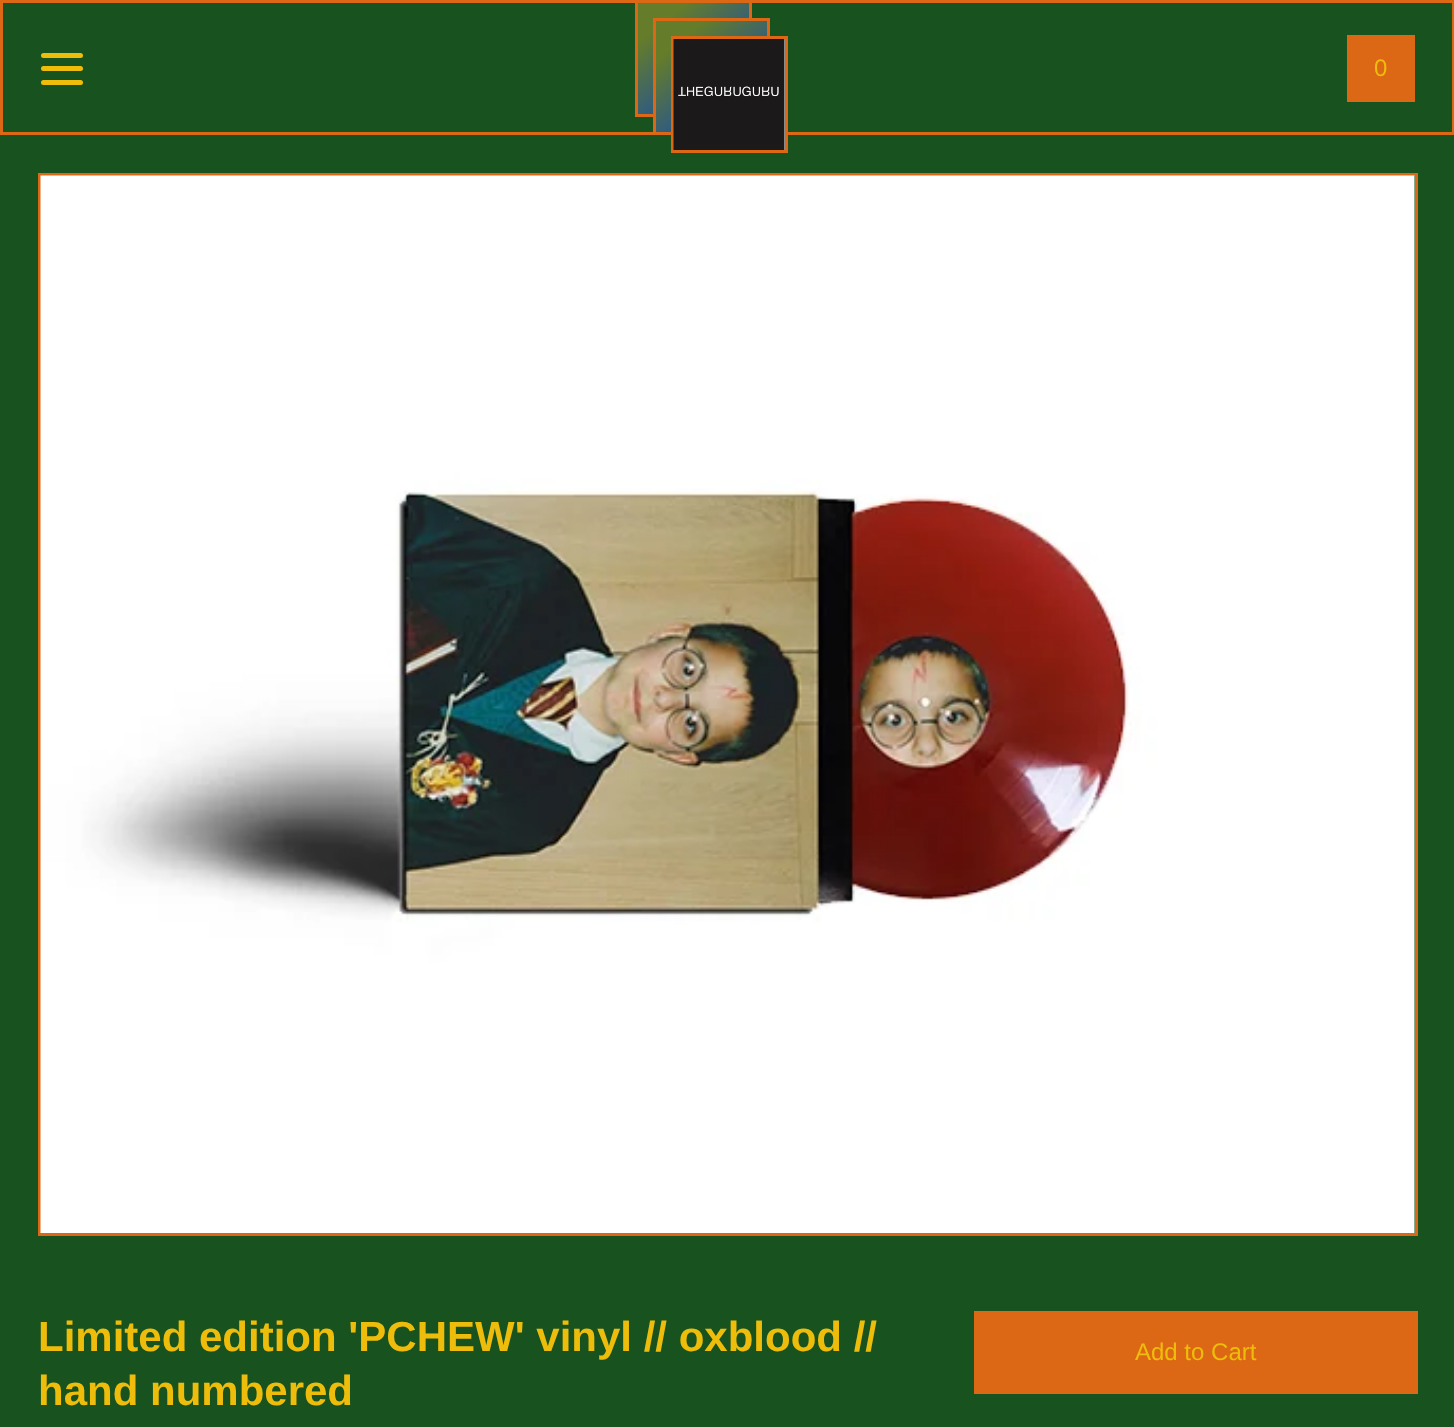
(async () => {
    const canvas = document.querySelector("canvas");
    canvas.width = 1454;
    canvas.height = 1427;
    const context = canvas.getContext("2d");
    context.miterLimit = 4;
    context.fontKerning = "normal";
    function write(s, x, y, font, color) {
        context.font = font;
        context.fillStyle = color;
        context.fillText(s, x, y);
    }
    function block(x, y, w, h, color) {
        context.fillStyle = color;
        context.fillRect(x, y, w, h);
    }
    function card(x, y, w, h, r, color) {
        context.fillStyle = color;
        context.beginPath();
        context.roundRect(x, y, w, h, r);
        context.fill();
    }
    async function photo(src, x, y, w, h) {
        const img = new Image();
        img.src = src;
        await img.decode();
        context.drawImage(img, x, y, w, h);
    }
    let gradient;

    block(0, 0, 1454, 1427, "rgb(23, 82, 31)");
    context.strokeStyle = "rgb(220, 104, 21)";
    context.lineWidth = 3;
    context.strokeRect(1.5, 1.5, 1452, 132);
    card(41, 66, 42, 5, 2.5, "rgb(238, 189, 11)");
    card(41, 53, 42, 5, 2.5, "rgb(238, 189, 11)");
    card(41, 80, 42, 5, 2.5, "rgb(238, 189, 11)");
    gradient = context.createLinearGradient(643, -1.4, 743, 118);
    gradient.addColorStop(0.2, "rgb(101, 124, 42)");
    gradient.addColorStop(0.7, "rgb(35, 84, 147)");
    context.fillStyle = gradient;
    context.fillRect(638, 3, 111, 111);
    context.strokeRect(636.5, 1.5, 114, 114);
    gradient = context.createLinearGradient(661, 17, 761, 136);
    gradient.addColorStop(0.2, "rgb(101, 124, 42)");
    gradient.addColorStop(0.7, "rgb(35, 84, 147)");
    context.fillStyle = gradient;
    context.fillRect(656, 21, 111, 111);
    context.strokeRect(654.5, 19.5, 114, 114);
    block(784, 39, 1, 111, "rgb(255, 255, 255)");
    context.strokeRect(672.5, 37.5, 114, 114);
    await photo("media/1.png", 673, 39, 112, 111);
    block(1347, 35, 68, 67, "rgb(220, 104, 21)");
    write("0", 1374, 76, "24px Liberation Sans", "rgb(238, 189, 11)");
    context.strokeRect(39.5, 174.5, 1377, 1060);
    await photo("media/2.png", 40, 175, 1375, 1058);
    write("Limited edition 'PCHEW' vinyl // oxblood //", 38, 1351, "bold 42px Liberation Sans", "rgb(238, 189, 11)");
    write("hand numbered", 38, 1405, "bold 42px Liberation Sans", "rgb(238, 189, 11)");
    block(974, 1311, 444, 83, "rgb(220, 104, 21)");
    write("Add to Cart", 1135, 1360, "24px Liberation Sans", "rgb(238, 189, 11)");
})();
